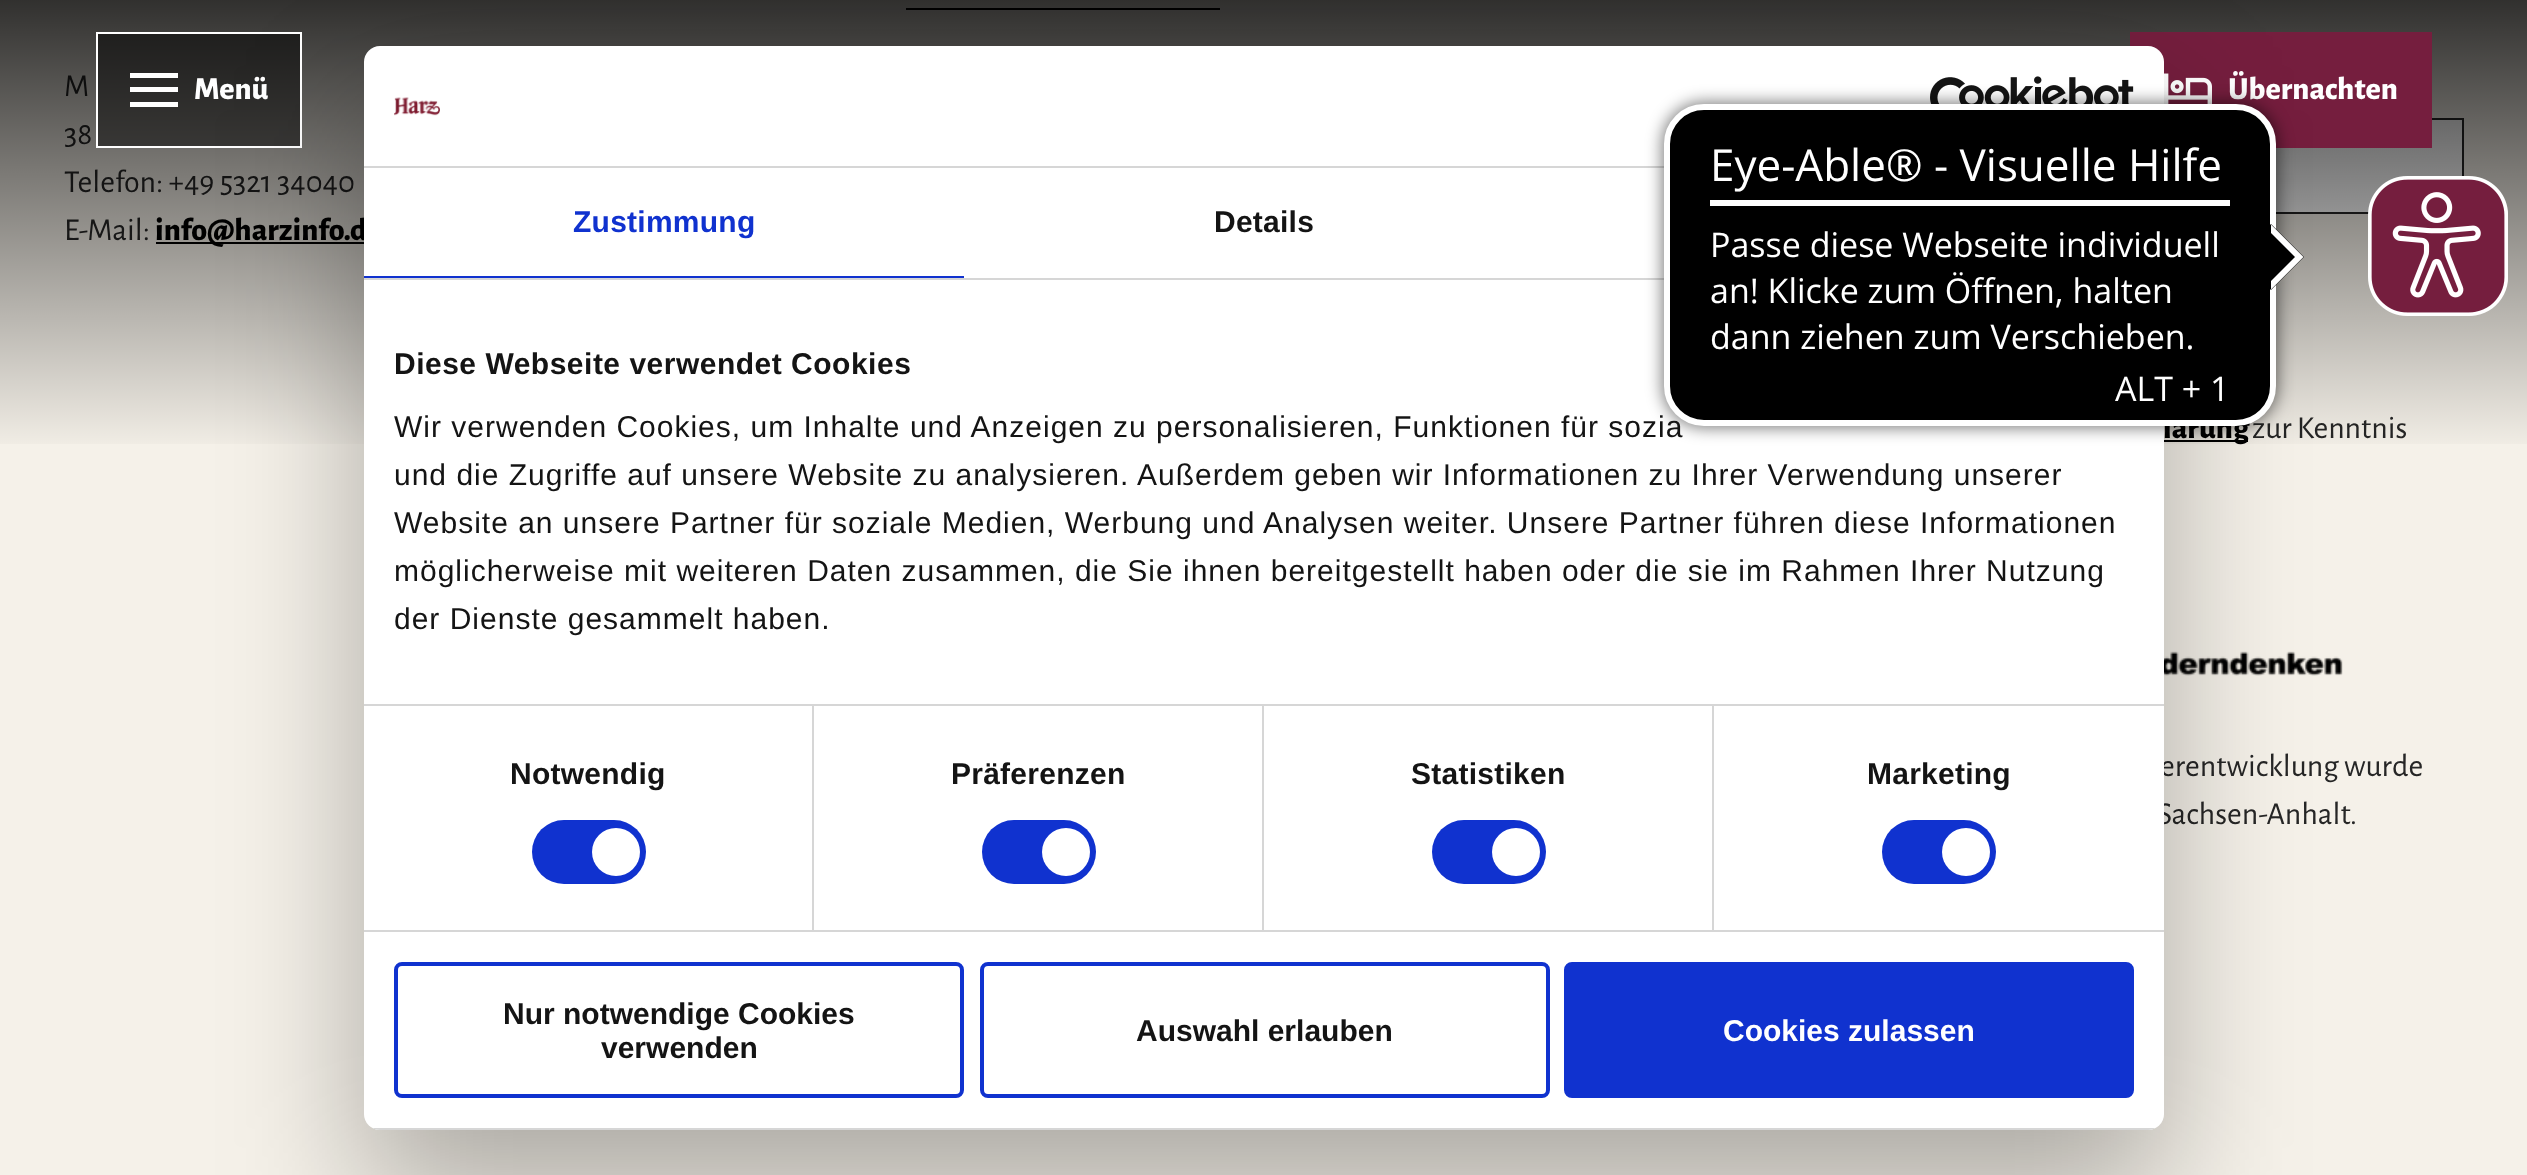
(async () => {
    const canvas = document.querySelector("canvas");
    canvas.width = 2527;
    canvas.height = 1175;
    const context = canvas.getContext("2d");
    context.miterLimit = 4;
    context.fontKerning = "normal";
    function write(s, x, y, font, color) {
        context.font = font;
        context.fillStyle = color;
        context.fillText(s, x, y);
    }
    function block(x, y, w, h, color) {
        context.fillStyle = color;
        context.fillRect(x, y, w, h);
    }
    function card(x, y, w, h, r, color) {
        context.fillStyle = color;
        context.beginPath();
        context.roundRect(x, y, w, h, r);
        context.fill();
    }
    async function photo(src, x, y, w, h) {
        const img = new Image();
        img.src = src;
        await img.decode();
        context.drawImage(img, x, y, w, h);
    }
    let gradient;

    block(0, 0, 2527, 1175, "rgb(245, 241, 233)");
    block(906, 8, 314, 2, "rgb(0, 0, 0)");
    write("M", 64, 96, "32px Alegreya Sans", "rgb(38, 38, 38)");
    write("38", 64, 144, "32px Alegreya Sans", "rgb(38, 38, 38)");
    write("Telefon: +49 5321 34040", 64, 192, "32px Alegreya Sans", "rgb(38, 38, 38)");
    write("E-Mail:", 64, 240, "32px Alegreya Sans", "rgb(38, 38, 38)");
    block(156, 242, 208, 2, "rgb(0, 0, 0)");
    write("info@harzinfo.d", 155, 240, "800 32px Alegreya Sans", "rgb(0, 0, 0)");
    block(2276, 120, 186, 92, "rgb(255, 255, 255)");
    context.strokeStyle = "rgb(38, 38, 38)";
    context.lineWidth = 2;
    context.strokeRect(1751, 119, 712, 94);
    block(2164, 440, 84, 2, "rgb(0, 0, 0)");
    write("lärung", 2163, 438, "800 32px Alegreya Sans", "rgb(0, 0, 0)");
    write("zur Kenntnis", 2252, 438, "32px Alegreya Sans", "rgb(38, 38, 38)");
    gradient = context.createLinearGradient(1264, 0, 1264, 456);
    gradient.addColorStop(0, "rgba(0, 0, 0, 0.8)");
    gradient.addColorStop(1, "rgba(0, 0, 0, 0)");
    context.fillStyle = gradient;
    context.fillRect(0, 0, 2527, 444);
    context.fillStyle = "rgba(0, 0, 0, 0.5)";
    context.beginPath();
    context.rect(97, 33, 204, 114);
    context.fill();
    context.strokeStyle = "rgb(255, 255, 255)";
    context.stroke();
    context.fillStyle = "rgb(255, 255, 255)";
    context.beginPath();
    context.moveTo(178, 78);
    context.lineTo(178, 73);
    context.lineTo(130, 73);
    context.lineTo(130, 78);
    context.closePath();
    context.moveTo(178, 87);
    context.lineTo(178, 92);
    context.lineTo(130, 92);
    context.lineTo(130, 87);
    context.closePath();
    context.moveTo(178, 102);
    context.lineTo(178, 107);
    context.lineTo(130, 107);
    context.lineTo(130, 102);
    context.closePath();
    context.fill("evenodd");
    write("Menü", 194, 99, "800 32px Alegreya Sans", "rgb(255, 255, 255)");
    block(2130, 32, 302, 116, "rgb(117, 30, 62)");
    await photo("media/1.png", 2164, 73, 48, 31);
    write("Übernachten", 2228, 99, "800 32px Alegreya Sans", "rgb(255, 255, 255)");
    await photo("media/2.png", 2164, 651, 179, 25);
    write("erentwicklung wurde", 2160, 776, "32px Alegreya Sans", "rgb(38, 38, 38)");
    write("Sachsen-Anhalt.", 2157, 824, "32px Alegreya Sans", "rgb(38, 38, 38)");
    context.fillStyle = "rgba(0, 0, 0, 0.3)";
    context.filter = "blur(68px)";
    context.beginPath();
    context.roundRect(364, 110, 1800, 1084, 16);
    context.fill();
    context.filter = "none";
    card(364, 46, 1800, 1084, 16, "rgb(255, 255, 255)");
    block(364, 166, 1300, 2, "rgb(214, 214, 214)");
    await photo("media/4.png", 1930, 76, 204, 28);
    block(364, 278, 1300, 2, "rgb(214, 214, 214)");
    context.fillStyle = "rgba(0, 0, 0, 0.5)";
    context.filter = "blur(8px)";
    context.beginPath();
    context.roundRect(1662, 102, 616, 326, 42);
    context.fill();
    context.filter = "none";
    context.letterSpacing = "1px";
    write("Wir verwenden Cookies, um Inhalte und Anzeigen zu personalisieren, Funktionen für sozia", 394, 437, "30px Liberation Sans", "rgb(20, 20, 20)");
    context.fillStyle = "rgb(0, 0, 0)";
    context.beginPath();
    context.roundRect(1667, 107, 606, 316, 37);
    context.fill();
    context.lineWidth = 6;
    context.stroke();
    block(1710, 200, 520, 6, "rgb(255, 255, 255)");
    context.letterSpacing = "0px";
    write("Eye-Able® - Visuelle Hilfe", 1710, 181, "44px Open Sans", "rgb(255, 255, 255)");
    write("Passe diese Webseite individuell", 1710, 257, "34px Open Sans", "rgb(255, 255, 255)");
    write("an! Klicke zum Öffnen, halten", 1710, 303, "34px Open Sans", "rgb(255, 255, 255)");
    write("dann ziehen zum Verschieben.", 1710, 349, "34px Open Sans", "rgb(255, 255, 255)");
    context.fillStyle = "rgb(0, 0, 0)";
    context.beginPath();
    context.moveTo(2271, 224);
    context.lineTo(2304, 257);
    context.lineTo(2271, 290);
    context.lineTo(2238, 257);
    context.closePath();
    context.fill();
    context.fillStyle = "rgb(255, 255, 255)";
    context.beginPath();
    context.moveTo(2271, 224.5);
    context.lineTo(2303.5, 257);
    context.lineTo(2295, 257);
    context.lineTo(2271, 233);
    context.closePath();
    context.fill();
    context.beginPath();
    context.moveTo(2303.5, 257);
    context.lineTo(2271, 289.5);
    context.lineTo(2271, 281);
    context.lineTo(2295, 257);
    context.closePath();
    context.fill();
    write("ALT + 1", 2115, 401, "34px Open Sans", "rgb(255, 255, 255)");
    await photo("media/3.png", 2368, 176, 140, 140);
    await photo("media/5.png", 394, 97, 46, 19);
    block(364, 276, 600, 2, "rgb(16, 50, 207)");
    context.letterSpacing = "0.25px";
    write("Zustimmung", 573, 232, "bold 30px Liberation Sans", "rgb(16, 50, 207)");
    write("Details", 1214, 232, "bold 30px Liberation Sans", "rgb(20, 20, 20)");
    block(364, 704, 1800, 2, "rgb(214, 214, 214)");
    context.letterSpacing = "0.5px";
    write("Diese Webseite verwendet Cookies", 394, 374, "bold 30px Liberation Sans", "rgb(20, 20, 20)");
    context.letterSpacing = "1px";
    write("und die Zugriffe auf unsere Website zu analysieren. Außerdem geben wir Informationen zu Ihrer Verwendung unserer", 394, 485, "30px Liberation Sans", "rgb(20, 20, 20)");
    write("Website an unsere Partner für soziale Medien, Werbung und Analysen weiter. Unsere Partner führen diese Informationen", 394, 533, "30px Liberation Sans", "rgb(20, 20, 20)");
    write("möglicherweise mit weiteren Daten zusammen, die Sie ihnen bereitgestellt haben oder die sie im Rahmen Ihrer Nutzung", 394, 581, "30px Liberation Sans", "rgb(20, 20, 20)");
    write("der Dienste gesammelt haben.", 394, 629, "30px Liberation Sans", "rgb(20, 20, 20)");
    block(364, 930, 1800, 2, "rgb(214, 214, 214)");
    block(812, 706, 2, 224, "rgb(214, 214, 214)");
    context.letterSpacing = "0.25px";
    write("Notwendig", 510, 784, "bold 30px Liberation Sans", "rgb(20, 20, 20)");
    card(532, 820, 114, 64, 32, "rgb(16, 50, 207)");
    context.fillStyle = "rgb(255, 255, 255)";
    context.beginPath();
    context.arc(616, 852, 24, 0, Math.PI * 2);
    context.fill();
    block(1262, 706, 2, 224, "rgb(214, 214, 214)");
    write("Präferenzen", 951, 784, "bold 30px Liberation Sans", "rgb(20, 20, 20)");
    card(982, 820, 114, 64, 32, "rgb(16, 50, 207)");
    context.fillStyle = "rgb(255, 255, 255)";
    context.beginPath();
    context.arc(1066, 852, 24, 0, Math.PI * 2);
    context.fill();
    block(1712, 706, 2, 224, "rgb(214, 214, 214)");
    write("Statistiken", 1411, 784, "bold 30px Liberation Sans", "rgb(20, 20, 20)");
    card(1432, 820, 114, 64, 32, "rgb(16, 50, 207)");
    context.fillStyle = "rgb(255, 255, 255)";
    context.beginPath();
    context.arc(1516, 852, 24, 0, Math.PI * 2);
    context.fill();
    write("Marketing", 1867, 784, "bold 30px Liberation Sans", "rgb(20, 20, 20)");
    card(1882, 820, 114, 64, 32, "rgb(16, 50, 207)");
    context.fillStyle = "rgb(255, 255, 255)";
    context.beginPath();
    context.arc(1966, 852, 24, 0, Math.PI * 2);
    context.fill();
    context.save();
    context.beginPath();
    context.roundRect(364, 46, 1800, 1084, 16);
    context.clip();
    block(364, 1128, 1800, 2, "rgb(214, 214, 214)");
    context.restore();
    context.beginPath();
    context.roundRect(396, 964, 566, 132, 6);
    context.strokeStyle = "rgb(16, 50, 207)";
    context.lineWidth = 4;
    context.stroke();
    context.letterSpacing = "0px";
    write("Nur notwendige Cookies", 503, 1024, "bold 30px Liberation Sans", "rgb(20, 20, 20)");
    write("verwenden", 601, 1058, "bold 30px Liberation Sans", "rgb(20, 20, 20)");
    context.beginPath();
    context.roundRect(982, 964, 566, 132, 6);
    context.stroke();
    write("Auswahl erlauben", 1136, 1041, "bold 30px Liberation Sans", "rgb(20, 20, 20)");
    context.fillStyle = "rgb(16, 50, 207)";
    context.beginPath();
    context.roundRect(1566, 964, 566, 132, 6);
    context.fill();
    context.stroke();
    write("Cookies zulassen", 1723, 1041, "bold 30px Liberation Sans", "rgb(255, 255, 255)");
})();
